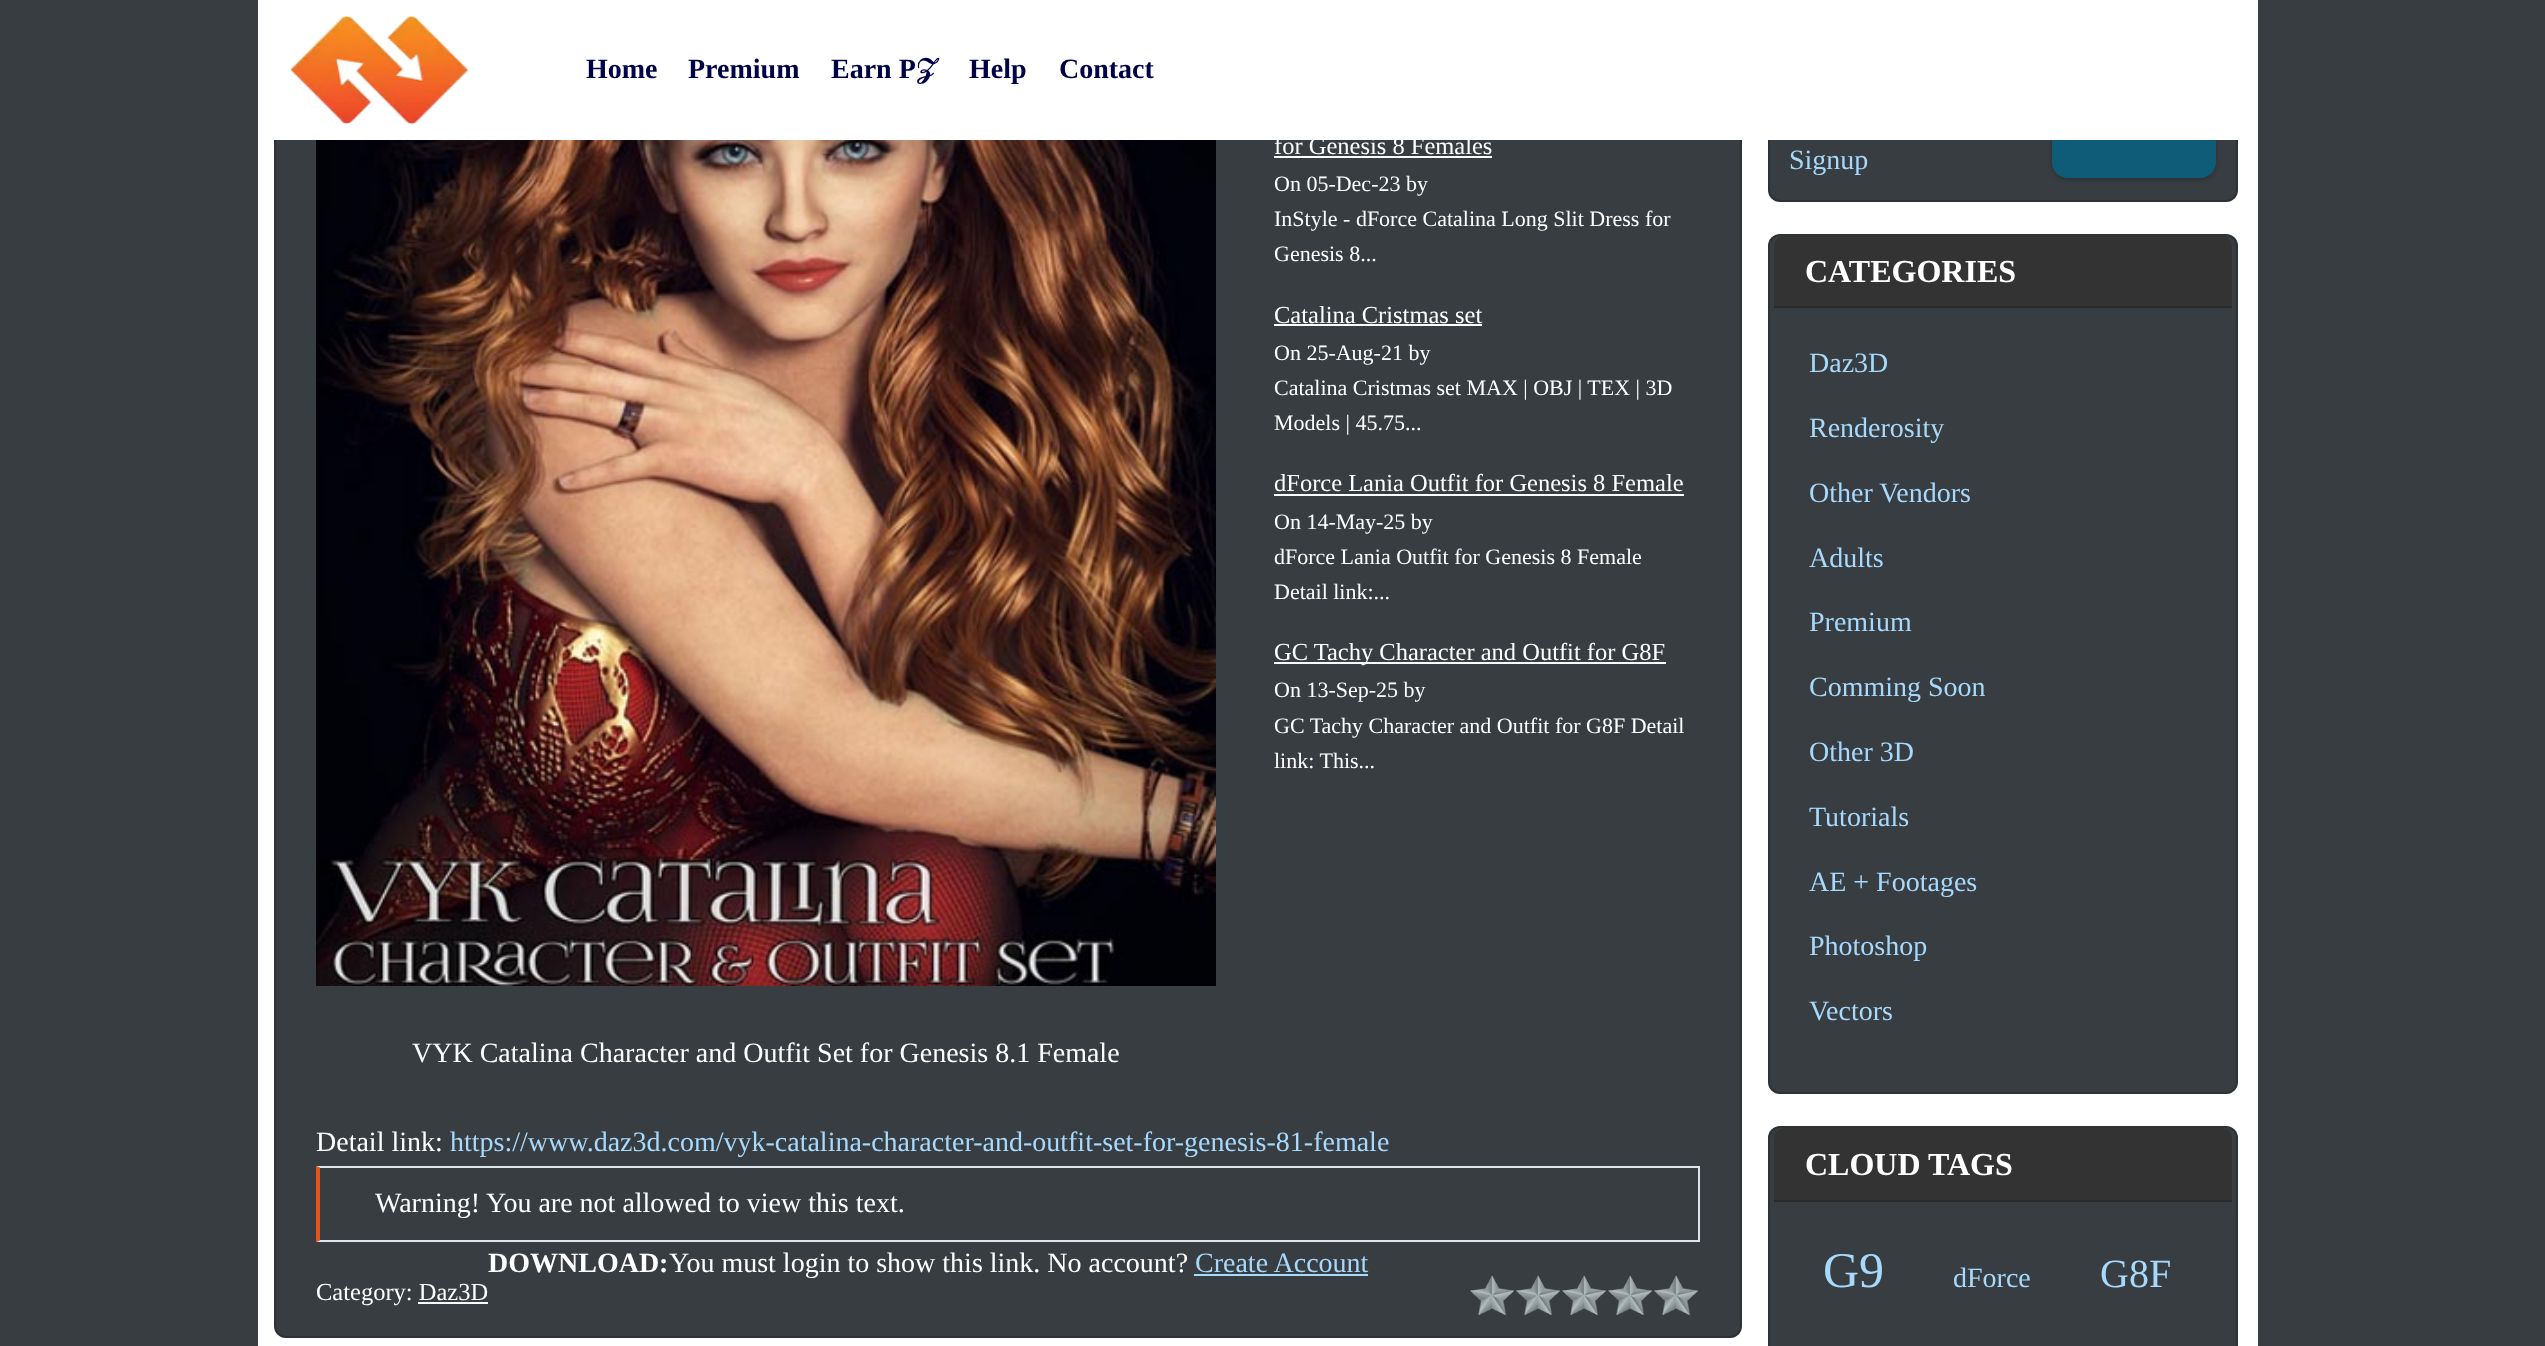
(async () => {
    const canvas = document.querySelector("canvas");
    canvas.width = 2545;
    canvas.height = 1346;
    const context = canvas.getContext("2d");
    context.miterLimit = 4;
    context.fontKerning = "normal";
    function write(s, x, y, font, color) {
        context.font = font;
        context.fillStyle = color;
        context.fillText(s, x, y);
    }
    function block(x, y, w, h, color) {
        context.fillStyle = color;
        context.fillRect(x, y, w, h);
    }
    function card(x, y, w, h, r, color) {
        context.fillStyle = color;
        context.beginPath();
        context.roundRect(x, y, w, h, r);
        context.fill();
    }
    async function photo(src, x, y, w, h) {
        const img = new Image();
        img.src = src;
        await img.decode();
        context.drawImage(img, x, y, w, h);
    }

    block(0, 0, 2545, 1346, "rgb(56, 61, 65)");
    block(258, 140, 2000, 1206, "rgb(255, 255, 255)");
    card(274, -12, 1468, 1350, 12, "rgb(56, 61, 65)");
    context.beginPath();
    context.roundRect(275, -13, 1466, 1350, 11);
    context.strokeStyle = "rgba(0, 0, 0, 0.18)";
    context.lineWidth = 2;
    context.stroke();
    card(1768, -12, 470, 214, 12, "rgb(56, 61, 65)");
    context.beginPath();
    context.roundRect(1769, -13, 468, 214, 11);
    context.stroke();
    context.save();
    context.beginPath();
    context.moveTo(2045, 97);
    context.lineTo(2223, 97);
    context.lineTo(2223, 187);
    context.lineTo(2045, 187);
    context.closePath();
    context.moveTo(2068, 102);
    context.lineTo(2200, 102);
    context.bezierCurveTo(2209, 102, 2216, 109, 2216, 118);
    context.lineTo(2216, 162);
    context.bezierCurveTo(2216, 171, 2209, 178, 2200, 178);
    context.lineTo(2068, 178);
    context.bezierCurveTo(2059, 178, 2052, 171, 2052, 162);
    context.lineTo(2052, 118);
    context.bezierCurveTo(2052, 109, 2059, 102, 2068, 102);
    context.closePath();
    context.clip("evenodd");
    context.fillStyle = "rgba(0, 0, 0, 0.2)";
    context.filter = "blur(2px)";
    context.beginPath();
    context.roundRect(2052, 104, 164, 76, 16);
    context.fill();
    context.filter = "none";
    context.restore();
    card(2052, 102, 164, 76, 16, "rgba(12, 95, 126, 0.93)");
    block(258, 0, 2000, 140, "rgb(255, 255, 255)");
    await photo("media/1.png", 290, 16, 178, 108);
    write("Home", 586, 78, "bold 28px Liberation Serif", "rgb(0, 2, 71)");
    write("Premium", 688, 78, "bold 28px Liberation Serif", "rgb(0, 2, 71)");
    write("Earn P", 831, 78, "bold 28px Liberation Serif", "rgb(0, 2, 71)");
    write("𝒵", 916, 78, "bold 28px FreeSerif", "rgb(0, 2, 71)");
    write("Help", 969, 78, "bold 28px Liberation Serif", "rgb(0, 2, 71)");
    write("Contact", 1059, 78, "bold 28px Liberation Serif", "rgb(0, 2, 71)");
    write("for Genesis 8 Females", 1274, 154, "24.5px Liberation Serif", "rgb(255, 255, 255)");
    block(1274, 156, 218, 2, "rgb(255, 255, 255)");
    write("On 05-Dec-23 by", 1274, 191, "22px Liberation Serif", "rgb(255, 255, 255)");
    write("InStyle - dForce Catalina Long Slit Dress for", 1274, 226, "22px Liberation Serif", "rgb(255, 255, 255)");
    write("Genesis 8...", 1274, 261, "22px Liberation Serif", "rgb(255, 255, 255)");
    write("Catalina Cristmas set", 1274, 323, "24.5px Liberation Serif", "rgb(255, 255, 255)");
    block(1274, 324, 208, 2, "rgb(255, 255, 255)");
    write("On 25-Aug-21 by", 1274, 360, "22px Liberation Serif", "rgb(255, 255, 255)");
    write("Catalina Cristmas set MAX | OBJ | TEX | 3D", 1274, 395, "22px Liberation Serif", "rgb(255, 255, 255)");
    write("Models | 45.75...", 1274, 430, "22px Liberation Serif", "rgb(255, 255, 255)");
    write("dForce Lania Outfit for Genesis 8 Female", 1274, 491, "24.5px Liberation Serif", "rgb(255, 255, 255)");
    block(1274, 494, 410, 2, "rgb(255, 255, 255)");
    write("On 14-May-25 by", 1274, 529, "22px Liberation Serif", "rgb(255, 255, 255)");
    write("dForce Lania Outfit for Genesis 8 Female", 1274, 564, "22px Liberation Serif", "rgb(255, 255, 255)");
    write("Detail link:...", 1274, 599, "22px Liberation Serif", "rgb(255, 255, 255)");
    block(1274, 662, 392, 2, "rgb(255, 255, 255)");
    write("GC Tachy Character and Outfit for G8F", 1274, 660, "24.5px Liberation Serif", "rgb(255, 255, 255)");
    write("On 13-Sep-25 by", 1274, 697, "22px Liberation Serif", "rgb(255, 255, 255)");
    write("GC Tachy Character and Outfit for G8F Detail", 1274, 733, "22px Liberation Serif", "rgb(255, 255, 255)");
    write("link: This...", 1274, 768, "22px Liberation Serif", "rgb(255, 255, 255)");
    await photo("media/2.png", 316, 140, 900, 846);
    write("VYK Catalina Character and Outfit Set for Genesis 8.1 Female", 412, 1062, "28px Liberation Serif", "rgb(255, 255, 255)");
    write("Detail link:", 316, 1151, "28px Liberation Serif", "rgb(255, 255, 255)");
    write("https://www.daz3d.com/vyk-catalina-character-and-outfit-set-for-genesis-81-female", 450, 1151, "28px Liberation Serif", "rgb(167, 217, 253)");
    context.fillStyle = "rgb(221, 228, 234)";
    context.beginPath();
    context.moveTo(316, 1166);
    context.lineTo(1700, 1166);
    context.lineTo(1698, 1168);
    context.lineTo(320, 1168);
    context.closePath();
    context.fill();
    block(1698, 1166, 2, 76, "rgb(221, 228, 234)");
    context.beginPath();
    context.moveTo(1700, 1242);
    context.lineTo(316, 1242);
    context.lineTo(320, 1240);
    context.lineTo(1698, 1240);
    context.closePath();
    context.fill();
    context.fillStyle = "rgb(232, 83, 25)";
    context.beginPath();
    context.moveTo(316, 1242);
    context.lineTo(316, 1166);
    context.lineTo(320, 1168);
    context.lineTo(320, 1240);
    context.closePath();
    context.fill();
    write("Warning! You are not allowed to view this text.", 375, 1212, "28px Liberation Serif", "rgb(255, 255, 255)");
    write("DOWNLOAD:", 488, 1272, "bold 28px Liberation Serif", "rgb(255, 255, 255)");
    write("You must login to show this link. No account?", 669, 1272, "28px Liberation Serif", "rgb(255, 255, 255)");
    write("Create Account", 1195, 1272, "28px Liberation Serif", "rgb(167, 217, 253)");
    block(1194, 1274, 174, 2, "rgb(167, 217, 253)");
    write("Category: Daz3D", 316, 1300, "24.5px Liberation Serif", "rgb(255, 255, 255)");
    block(418, 1302, 70, 2, "rgb(255, 255, 255)");
    await photo("media/3.png", 1470, 1275, 228, 40);
    write("Signup", 1789, 169, "28px Liberation Serif", "rgb(167, 217, 253)");
    card(1768, 234, 470, 860, 12, "rgb(56, 61, 65)");
    context.beginPath();
    context.roundRect(1769, 235, 468, 858, 11);
    context.stroke();
    context.fillStyle = "rgb(51, 51, 51)";
    context.beginPath();
    context.roundRect(1774, 236, 458, 72, [10, 10, 0, 0]);
    context.fill();
    block(1774, 306, 458, 2, "rgb(42, 42, 42)");
    write("CATEGORIES", 1805, 282, "bold 32px Liberation Serif", "rgb(255, 255, 255)");
    write("Daz3D", 1809, 372, "28px Liberation Serif", "rgb(167, 217, 253)");
    write("Renderosity", 1809, 437, "28px Liberation Serif", "rgb(167, 217, 253)");
    write("Other Vendors", 1809, 502, "28px Liberation Serif", "rgb(167, 217, 253)");
    write("Adults", 1809, 567, "28px Liberation Serif", "rgb(167, 217, 253)");
    write("Premium", 1809, 631, "28px Liberation Serif", "rgb(167, 217, 253)");
    write("Comming Soon", 1809, 696, "28px Liberation Serif", "rgb(167, 217, 253)");
    write("Other 3D", 1809, 761, "28px Liberation Serif", "rgb(167, 217, 253)");
    write("Tutorials", 1809, 826, "28px Liberation Serif", "rgb(167, 217, 253)");
    write("AE + Footages", 1809, 891, "28px Liberation Serif", "rgb(167, 217, 253)");
    write("Photoshop", 1809, 955, "28px Liberation Serif", "rgb(167, 217, 253)");
    write("Vectors", 1809, 1020, "28px Liberation Serif", "rgb(167, 217, 253)");
    card(1768, 1126, 470, 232, 12, "rgb(56, 61, 65)");
    context.beginPath();
    context.roundRect(1769, 1127, 468, 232, 11);
    context.stroke();
    context.fillStyle = "rgb(51, 51, 51)";
    context.beginPath();
    context.roundRect(1774, 1128, 458, 74, [10, 10, 0, 0]);
    context.fill();
    block(1774, 1200, 458, 2, "rgb(42, 42, 42)");
    write("CLOUD TAGS", 1805, 1175, "bold 32px Liberation Serif", "rgb(255, 255, 255)");
    write("G9", 1823, 1287, "50px Liberation Serif", "rgb(167, 217, 253)");
    write("dForce", 1953, 1287, "28px Liberation Serif", "rgb(167, 217, 253)");
    write("G8F", 2100, 1287, "40px Liberation Serif", "rgb(167, 217, 253)");
})();
